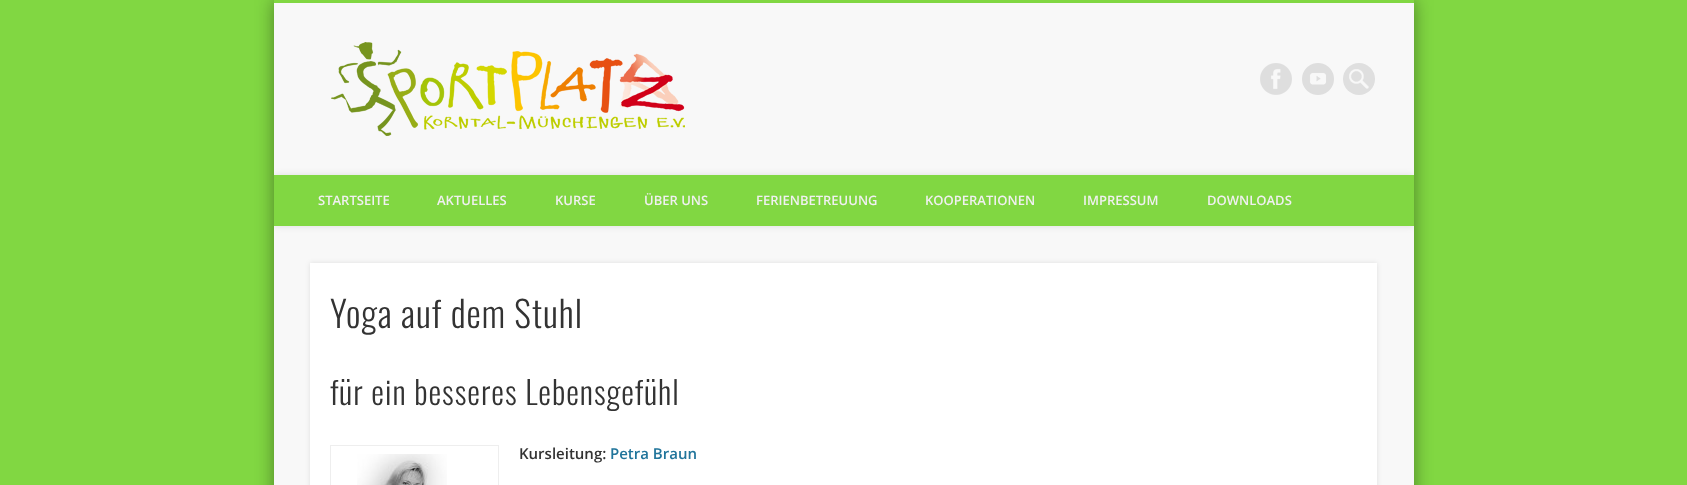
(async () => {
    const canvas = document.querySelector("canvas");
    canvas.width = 1687;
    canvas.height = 485;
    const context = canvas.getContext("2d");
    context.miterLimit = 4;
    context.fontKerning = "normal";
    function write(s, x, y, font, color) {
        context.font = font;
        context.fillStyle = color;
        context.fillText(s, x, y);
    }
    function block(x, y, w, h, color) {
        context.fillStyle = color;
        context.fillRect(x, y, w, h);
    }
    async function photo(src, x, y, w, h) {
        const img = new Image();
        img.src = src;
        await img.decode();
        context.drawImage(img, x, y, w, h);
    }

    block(0, 0, 1687, 485, "rgb(129, 215, 66)");
    context.fillStyle = "rgba(0, 0, 0, 0.4)";
    context.filter = "blur(9px)";
    context.beginPath();
    context.rect(274, 0, 1140, 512);
    context.fill();
    context.filter = "none";
    block(274, 3, 1140, 482, "rgb(248, 248, 248)");
    block(274, 0, 1140, 3, "rgb(129, 215, 66)");
    await photo("media/1.png", 331, 42, 354, 94);
    await photo("media/2.png", 1260, 63, 32, 32);
    await photo("media/3.png", 1302, 63, 32, 32);
    context.fillStyle = "rgb(223, 223, 223)";
    context.beginPath();
    context.arc(1359, 79, 16, 0, Math.PI * 2);
    context.fill();
    await photo("media/4.png", 1349, 69, 20, 20);
    context.save();
    context.beginPath();
    context.rect(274, 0, 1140, 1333);
    context.clip();
    context.fillStyle = "rgba(0, 0, 0, 0.1)";
    context.filter = "blur(3.5px)";
    context.beginPath();
    context.rect(274, 175, 1140, 51);
    context.fill();
    context.filter = "none";
    context.restore();
    block(274, 175, 1140, 51, "rgb(129, 215, 66)");
    write("STARTSEITE", 318, 205, "600 13px Open Sans", "rgb(240, 240, 240)");
    write("AKTUELLES", 437, 205, "600 13px Open Sans", "rgb(240, 240, 240)");
    write("KURSE", 555, 205, "600 13px Open Sans", "rgb(240, 240, 240)");
    write("ÜBER UNS", 644, 205, "600 13px Open Sans", "rgb(240, 240, 240)");
    write("FERIENBETREUUNG", 756, 205, "600 13px Open Sans", "rgb(240, 240, 240)");
    write("KOOPERATIONEN", 925, 205, "600 13px Open Sans", "rgb(240, 240, 240)");
    write("IMPRESSUM", 1083, 205, "600 13px Open Sans", "rgb(240, 240, 240)");
    write("DOWNLOADS", 1207, 205, "600 13px Open Sans", "rgb(240, 240, 240)");
    context.fillStyle = "rgba(0, 0, 0, 0.1)";
    context.filter = "blur(2.5px)";
    context.beginPath();
    context.rect(310, 263, 1067, 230);
    context.fill();
    context.filter = "none";
    block(310, 263, 1067, 222, "rgb(255, 255, 255)");
    context.letterSpacing = "1px";
    write("Yoga auf dem Stuhl", 330, 328, "300 36px Oswald", "rgb(51, 51, 51)");
    write("für ein besseres Lebensgefühl", 330, 405, "300 32px Oswald", "rgb(51, 51, 51)");
    context.strokeStyle = "rgb(238, 238, 238)";
    context.strokeRect(330.5, 445.5, 168, 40);
    await photo("media/5.png", 357, 454, 90, 31);
    context.letterSpacing = "0px";
    write("Kursleitung:", 519, 459, "600 15px Open Sans", "rgb(51, 51, 51)");
    write("Petra Braun", 610, 459, "600 15px Open Sans", "rgb(33, 117, 155)");
})();
